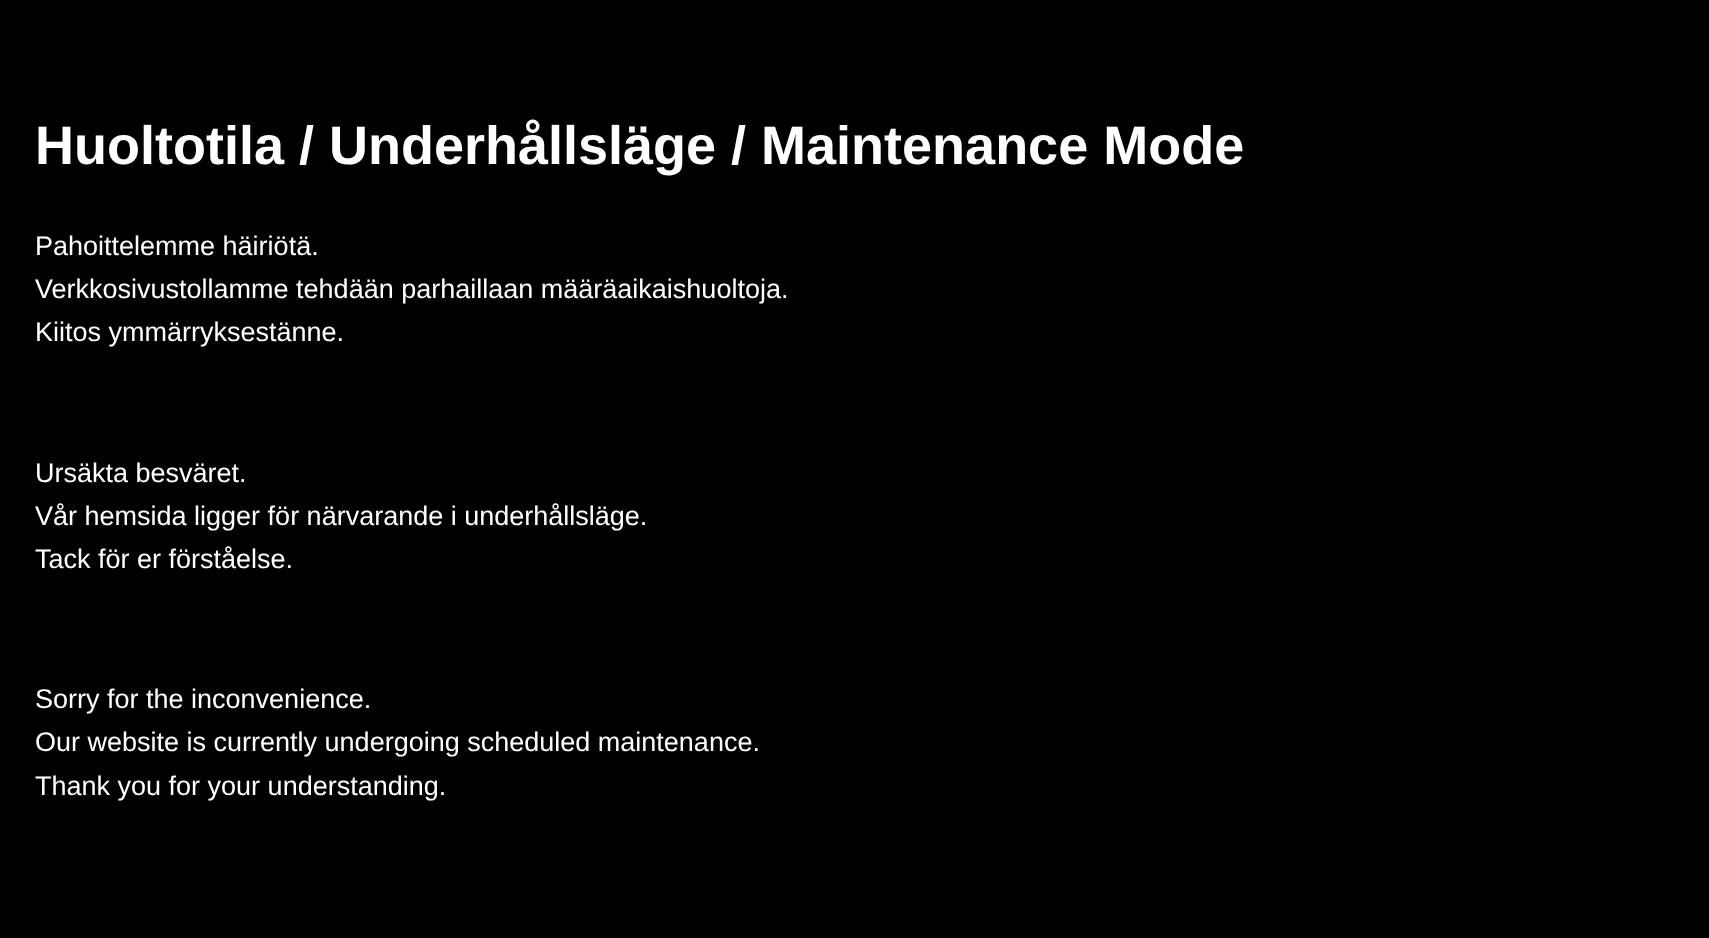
(async () => {
    const canvas = document.querySelector("canvas");
    canvas.width = 1709;
    canvas.height = 938;
    const context = canvas.getContext("2d");
    context.miterLimit = 4;
    context.fontKerning = "normal";
    function write(s, x, y, font, color) {
        context.font = font;
        context.fillStyle = color;
        context.fillText(s, x, y);
    }
    function block(x, y, w, h, color) {
        context.fillStyle = color;
        context.fillRect(x, y, w, h);
    }

    block(0, 0, 1709, 938, "rgb(0, 0, 0)");
    write("Huoltotila / Underhållsläge / Maintenance Mode", 35, 164, "bold 54px Liberation Sans", "rgb(255, 255, 255)");
    write("Pahoittelemme häiriötä.", 35, 255, "27px Liberation Sans", "rgb(255, 255, 255)");
    write("Verkkosivustollamme tehdään parhaillaan määräaikaishuoltoja.", 35, 298, "27px Liberation Sans", "rgb(255, 255, 255)");
    write("Kiitos ymmärryksestänne.", 35, 341, "27px Liberation Sans", "rgb(255, 255, 255)");
    write("Ursäkta besväret.", 35, 482, "27px Liberation Sans", "rgb(255, 255, 255)");
    write("Vår hemsida ligger för närvarande i underhållsläge.", 35, 525, "27px Liberation Sans", "rgb(255, 255, 255)");
    write("Tack för er förståelse.", 35, 568, "27px Liberation Sans", "rgb(255, 255, 255)");
    write("Sorry for the inconvenience.", 35, 708, "27px Liberation Sans", "rgb(255, 255, 255)");
    write("Our website is currently undergoing scheduled maintenance.", 35, 751, "27px Liberation Sans", "rgb(255, 255, 255)");
    write("Thank you for your understanding.", 35, 795, "27px Liberation Sans", "rgb(255, 255, 255)");
})();
